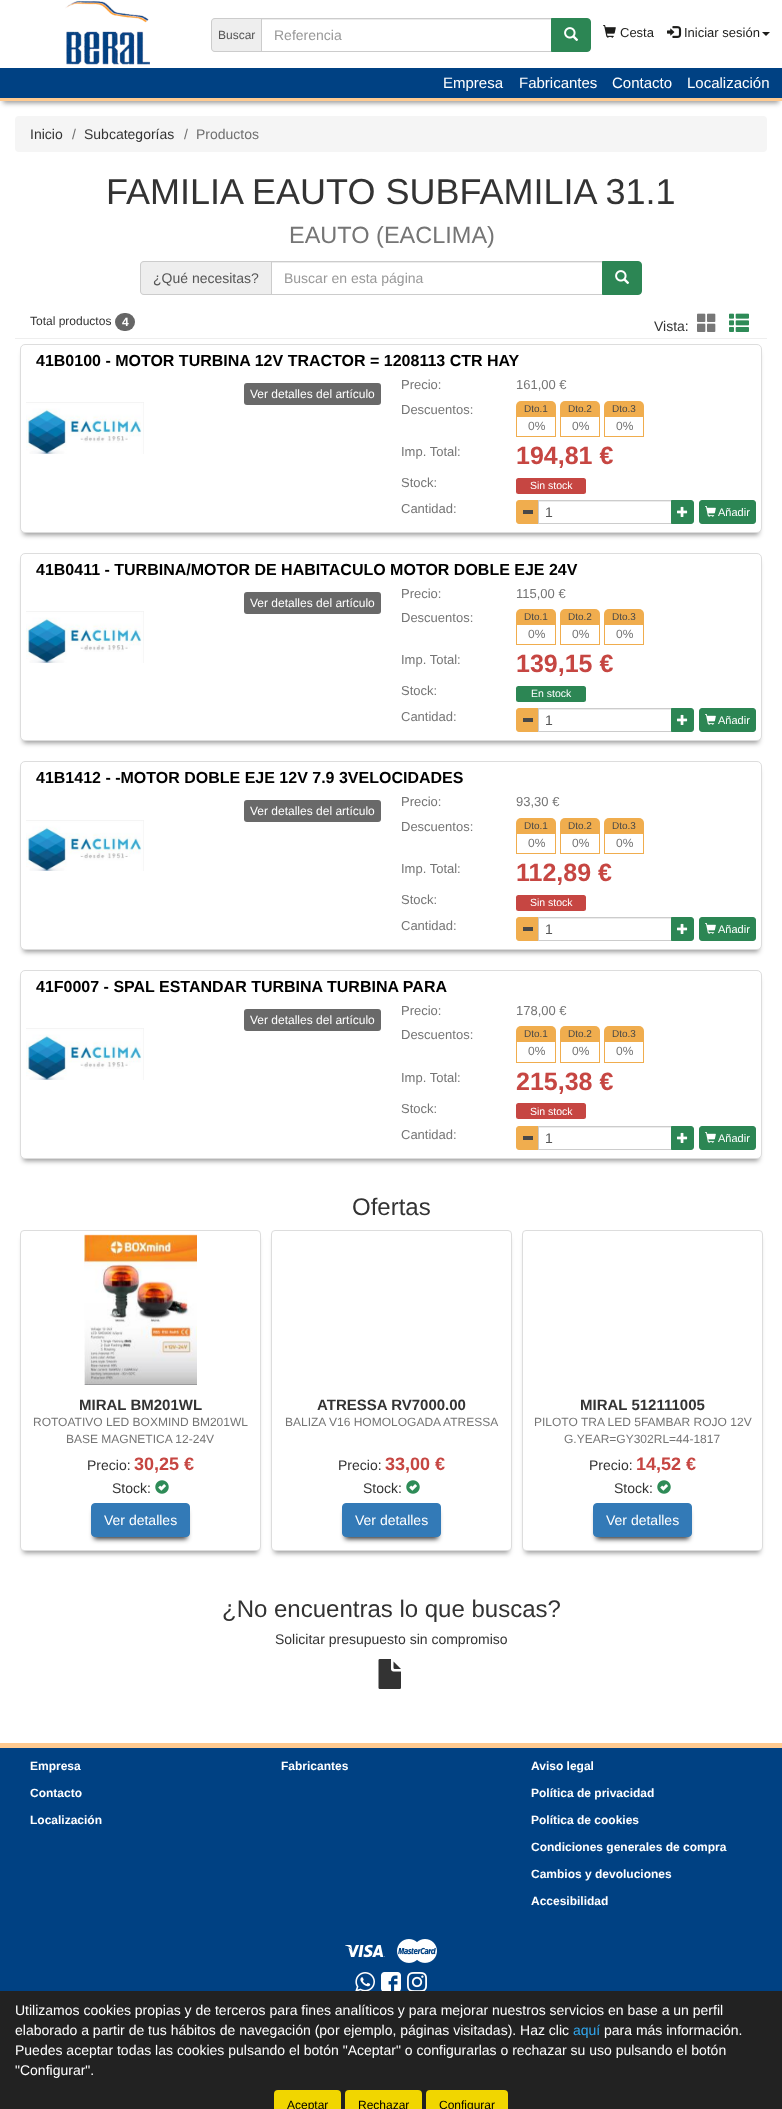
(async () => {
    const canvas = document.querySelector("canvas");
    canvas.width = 782;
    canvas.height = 2109;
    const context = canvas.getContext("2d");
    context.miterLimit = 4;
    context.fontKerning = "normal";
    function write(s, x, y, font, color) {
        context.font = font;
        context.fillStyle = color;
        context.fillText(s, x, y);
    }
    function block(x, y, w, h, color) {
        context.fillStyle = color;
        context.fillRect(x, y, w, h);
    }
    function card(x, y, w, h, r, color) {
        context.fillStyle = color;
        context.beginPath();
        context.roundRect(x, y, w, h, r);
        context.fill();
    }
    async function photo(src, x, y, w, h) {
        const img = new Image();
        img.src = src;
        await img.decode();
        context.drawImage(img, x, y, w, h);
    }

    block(0, 0, 782, 2109, "rgb(255, 255, 255)");
    await photo("media/1.png", 65, 0, 85, 65);
    context.fillStyle = "rgb(238, 238, 238)";
    context.beginPath();
    context.roundRect(211, 18, 50, 34, [4, 0, 0, 4]);
    context.fill();
    context.fillStyle = "rgb(204, 204, 204)";
    context.beginPath();
    context.moveTo(215, 18);
    context.lineTo(261, 18);
    context.lineTo(261, 52);
    context.lineTo(215, 52);
    context.bezierCurveTo(213, 52, 211, 50, 211, 48);
    context.lineTo(211, 22);
    context.bezierCurveTo(211, 20, 213, 18, 215, 18);
    context.closePath();
    context.moveTo(215, 19);
    context.lineTo(261, 19);
    context.lineTo(261, 51);
    context.lineTo(215, 51);
    context.bezierCurveTo(213, 51, 212, 50, 212, 48);
    context.lineTo(212, 22);
    context.bezierCurveTo(212, 20, 213, 19, 215, 19);
    context.closePath();
    context.fill("evenodd");
    write("Buscar", 218, 39, "12px Liberation Sans", "rgb(85, 85, 85)");
    block(262, 19, 289, 1, "rgb(236, 236, 236)");
    context.strokeStyle = "rgb(204, 204, 204)";
    context.strokeRect(261.5, 18.5, 290, 33);
    write("Referencia", 274, 40, "14px Liberation Sans", "rgb(153, 153, 153)");
    context.fillStyle = "rgb(44, 134, 84)";
    context.beginPath();
    context.roundRect(551.5, 18.5, 39, 33, [0, 3.5, 3.5, 0]);
    context.fill();
    context.strokeStyle = "rgb(44, 134, 84)";
    context.stroke();
    await photo("media/2.png", 564, 27, 15, 14);
    await photo("media/3.png", 603, 25, 13, 13);
    write("Cesta", 620, 37, "13px Liberation Sans", "rgb(29, 29, 27)");
    await photo("media/4.png", 667, 26, 15, 12);
    write("Iniciar sesión", 684, 37, "13px Liberation Sans", "rgb(29, 29, 27)");
    context.beginPath();
    context.moveTo(762, 32);
    context.lineTo(770, 32);
    context.lineTo(766, 36);
    context.closePath();
    context.fill();
    context.fillStyle = "rgba(0, 0, 0, 0.4)";
    context.filter = "blur(2.5px)";
    context.beginPath();
    context.rect(3, 76, 776, 27);
    context.fill();
    context.filter = "none";
    block(0, 68, 782, 30, "rgb(0, 65, 131)");
    block(0, 98, 782, 3, "rgb(255, 202, 144)");
    write("Empresa", 443, 88, "15px Liberation Sans", "rgb(255, 255, 255)");
    write("Fabricantes", 519, 88, "15px Liberation Sans", "rgb(255, 255, 255)");
    write("Contacto", 612, 88, "15px Liberation Sans", "rgb(255, 255, 255)");
    write("Localización", 687, 88, "15px Liberation Sans", "rgb(255, 255, 255)");
    card(15, 116, 752, 36, 4, "rgb(245, 245, 245)");
    write("Inicio", 30, 139, "14px Liberation Sans", "rgb(51, 51, 51)");
    write("/", 72, 139, "14px Liberation Sans", "rgb(111, 111, 111)");
    write("Subcategorías", 84, 139, "14px Liberation Sans", "rgb(51, 51, 51)");
    write("/", 184, 139, "14px Liberation Sans", "rgb(111, 111, 111)");
    write("Productos", 196, 139, "14px Liberation Sans", "rgb(111, 111, 111)");
    write("FAMILIA EAUTO SUBFAMILIA 31.1", 106, 204, "36px Liberation Sans", "rgb(51, 51, 51)");
    write("EAUTO (EACLIMA)", 289, 243, "23.5px Liberation Sans", "rgb(117, 117, 117)");
    context.fillStyle = "rgb(238, 238, 238)";
    context.beginPath();
    context.roundRect(140, 261, 131, 34, [4, 0, 0, 4]);
    context.fill();
    context.fillStyle = "rgb(204, 204, 204)";
    context.beginPath();
    context.moveTo(144, 261);
    context.lineTo(271, 261);
    context.lineTo(271, 295);
    context.lineTo(144, 295);
    context.bezierCurveTo(142, 295, 140, 293, 140, 291);
    context.lineTo(140, 265);
    context.bezierCurveTo(140, 263, 142, 261, 144, 261);
    context.closePath();
    context.moveTo(144, 262);
    context.lineTo(271, 262);
    context.lineTo(271, 294);
    context.lineTo(144, 294);
    context.bezierCurveTo(142, 294, 141, 293, 141, 291);
    context.lineTo(141, 265);
    context.bezierCurveTo(141, 263, 142, 262, 144, 262);
    context.closePath();
    context.fill("evenodd");
    write("¿Qué necesitas?", 153, 283, "14px Liberation Sans", "rgb(85, 85, 85)");
    block(272, 262, 330, 1, "rgb(236, 236, 236)");
    context.strokeStyle = "rgb(204, 204, 204)";
    context.strokeRect(271.5, 261.5, 331, 33);
    write("Buscar en esta página", 284, 283, "14px Liberation Sans", "rgb(153, 153, 153)");
    context.fillStyle = "rgb(44, 134, 84)";
    context.beginPath();
    context.roundRect(602.5, 261.5, 39, 33, [0, 3.5, 3.5, 0]);
    context.fill();
    context.strokeStyle = "rgb(44, 134, 84)";
    context.stroke();
    await photo("media/2.png", 615, 270, 15, 14);
    block(15, 338, 752, 1, "rgb(238, 238, 238)");
    write("Total productos", 30, 325, "12px Liberation Sans", "rgb(51, 51, 51)");
    card(115, 313, 20, 18, 9, "rgb(102, 102, 102)");
    write("4", 122, 326, "bold 12px Liberation Sans", "rgb(255, 255, 255)");
    write("Vista:", 654, 331, "14px Liberation Sans", "rgb(51, 51, 51)");
    await photo("media/5.png", 697, 313, 19, 19);
    await photo("media/6.png", 729, 313, 20, 19);
    context.fillStyle = "rgba(0, 0, 0, 0.4)";
    context.filter = "blur(2.5px)";
    context.beginPath();
    context.roundRect(23, 352, 736, 183, 2);
    context.fill();
    context.filter = "none";
    context.fillStyle = "rgb(255, 255, 255)";
    context.beginPath();
    context.roundRect(20.5, 344.5, 741, 188, 4.5);
    context.fill();
    context.strokeStyle = "rgb(221, 221, 221)";
    context.stroke();
    write("41B0100 - MOTOR TURBINA 12V TRACTOR = 1208113 CTR HAY", 36, 366, "bold 16px Liberation Sans", "rgb(0, 0, 0)");
    card(244, 383, 137, 22, 3, "rgb(105, 105, 105)");
    write("Ver detalles del artículo", 250, 398, "12px Liberation Sans", "rgb(255, 255, 255)");
    write("Precio:", 401, 389, "13px Liberation Sans", "rgb(117, 117, 117)");
    write("161,00 €", 516, 389, "13px Liberation Sans", "rgb(117, 117, 117)");
    write("Descuentos:", 401, 414, "13px Liberation Sans", "rgb(117, 117, 117)");
    context.fillStyle = "rgb(240, 173, 78)";
    context.beginPath();
    context.roundRect(516, 401, 40, 15, [5, 5, 0, 0]);
    context.fill();
    write("Dto.1", 524, 412, "10px Liberation Sans", "rgb(72, 72, 72)");
    context.strokeStyle = "rgb(240, 173, 78)";
    context.strokeRect(516.5, 416.5, 39, 20);
    write("0%", 528, 430, "12px Liberation Sans", "rgb(117, 117, 117)");
    context.fillStyle = "rgb(240, 173, 78)";
    context.beginPath();
    context.roundRect(560, 401, 40, 15, [5, 5, 0, 0]);
    context.fill();
    write("Dto.2", 568, 412, "10px Liberation Sans", "rgb(72, 72, 72)");
    context.strokeRect(560.5, 416.5, 39, 20);
    write("0%", 572, 430, "12px Liberation Sans", "rgb(117, 117, 117)");
    context.fillStyle = "rgb(240, 173, 78)";
    context.beginPath();
    context.roundRect(604, 401, 40, 15, [5, 5, 0, 0]);
    context.fill();
    write("Dto.3", 612, 412, "10px Liberation Sans", "rgb(72, 72, 72)");
    context.strokeRect(604.5, 416.5, 39, 20);
    write("0%", 616, 430, "12px Liberation Sans", "rgb(117, 117, 117)");
    write("Imp. Total:", 401, 456, "13px Liberation Sans", "rgb(117, 117, 117)");
    write("194,81 €", 516, 464, "bold 25px Liberation Sans", "rgb(198, 70, 66)");
    write("Stock:", 401, 487, "13px Liberation Sans", "rgb(117, 117, 117)");
    card(516, 478, 70, 16, 2.5, "rgb(198, 70, 66)");
    write("Sin stock", 530, 489, "10.5px Liberation Sans", "rgb(255, 255, 255)");
    write("Cantidad:", 401, 513, "13px Liberation Sans", "rgb(117, 117, 117)");
    context.fillStyle = "rgb(240, 173, 78)";
    context.beginPath();
    context.roundRect(516.5, 500.5, 22, 23, [2.5, 0, 0, 2.5]);
    context.fill();
    context.stroke();
    block(523, 510, 10, 4, "rgb(72, 72, 72)");
    block(539, 501, 132, 1, "rgb(236, 236, 236)");
    context.strokeStyle = "rgb(204, 204, 204)";
    context.strokeRect(538.5, 500.5, 133, 23);
    write("1", 545, 517, "14px Liberation Sans", "rgb(85, 85, 85)");
    context.fillStyle = "rgb(44, 134, 84)";
    context.beginPath();
    context.roundRect(671.5, 500.5, 22, 23, [0, 2.5, 2.5, 0]);
    context.fill();
    context.strokeStyle = "rgb(44, 134, 84)";
    context.stroke();
    await photo("media/7.png", 677, 506, 11, 11);
    context.beginPath();
    context.roundRect(699.5, 500.5, 56, 23, 2.5);
    context.fill();
    context.stroke();
    await photo("media/8.png", 705, 506, 11, 11);
    write("Añadir", 718, 516, "11px Liberation Sans", "rgb(255, 255, 255)");
    await photo("media/9.png", 26, 402, 118, 52);
    context.fillStyle = "rgba(0, 0, 0, 0.4)";
    context.filter = "blur(2.5px)";
    context.beginPath();
    context.roundRect(23, 561, 736, 182, 2);
    context.fill();
    context.filter = "none";
    context.fillStyle = "rgb(255, 255, 255)";
    context.beginPath();
    context.roundRect(20.5, 553.5, 741, 187, 4.5);
    context.fill();
    context.strokeStyle = "rgb(221, 221, 221)";
    context.stroke();
    write("41B0411 - TURBINA/MOTOR DE HABITACULO MOTOR DOBLE EJE 24V", 36, 575, "bold 16px Liberation Sans", "rgb(0, 0, 0)");
    card(244, 592, 137, 22, 3, "rgb(105, 105, 105)");
    write("Ver detalles del artículo", 250, 607, "12px Liberation Sans", "rgb(255, 255, 255)");
    write("Precio:", 401, 598, "13px Liberation Sans", "rgb(117, 117, 117)");
    write("115,00 €", 516, 598, "13px Liberation Sans", "rgb(117, 117, 117)");
    write("Descuentos:", 401, 622, "13px Liberation Sans", "rgb(117, 117, 117)");
    context.fillStyle = "rgb(240, 173, 78)";
    context.beginPath();
    context.roundRect(516, 609, 40, 15, [5, 5, 0, 0]);
    context.fill();
    write("Dto.1", 524, 620, "10px Liberation Sans", "rgb(72, 72, 72)");
    context.strokeStyle = "rgb(240, 173, 78)";
    context.strokeRect(516.5, 624.5, 39, 20);
    write("0%", 528, 638, "12px Liberation Sans", "rgb(117, 117, 117)");
    context.fillStyle = "rgb(240, 173, 78)";
    context.beginPath();
    context.roundRect(560, 609, 40, 15, [5, 5, 0, 0]);
    context.fill();
    write("Dto.2", 568, 620, "10px Liberation Sans", "rgb(72, 72, 72)");
    context.strokeRect(560.5, 624.5, 39, 20);
    write("0%", 572, 638, "12px Liberation Sans", "rgb(117, 117, 117)");
    context.fillStyle = "rgb(240, 173, 78)";
    context.beginPath();
    context.roundRect(604, 609, 40, 15, [5, 5, 0, 0]);
    context.fill();
    write("Dto.3", 612, 620, "10px Liberation Sans", "rgb(72, 72, 72)");
    context.strokeRect(604.5, 624.5, 39, 20);
    write("0%", 616, 638, "12px Liberation Sans", "rgb(117, 117, 117)");
    write("Imp. Total:", 401, 664, "13px Liberation Sans", "rgb(117, 117, 117)");
    write("139,15 €", 516, 672, "bold 25px Liberation Sans", "rgb(198, 70, 66)");
    write("Stock:", 401, 695, "13px Liberation Sans", "rgb(117, 117, 117)");
    card(516, 686, 70, 16, 2.5, "rgb(44, 134, 84)");
    write("En stock", 531, 697, "10.5px Liberation Sans", "rgb(255, 255, 255)");
    write("Cantidad:", 401, 721, "13px Liberation Sans", "rgb(117, 117, 117)");
    context.fillStyle = "rgb(240, 173, 78)";
    context.beginPath();
    context.roundRect(516.5, 708.5, 22, 23, [2.5, 0, 0, 2.5]);
    context.fill();
    context.stroke();
    block(523, 718, 10, 4, "rgb(72, 72, 72)");
    block(539, 709, 132, 1, "rgb(236, 236, 236)");
    context.strokeStyle = "rgb(204, 204, 204)";
    context.strokeRect(538.5, 708.5, 133, 23);
    write("1", 545, 725, "14px Liberation Sans", "rgb(85, 85, 85)");
    context.fillStyle = "rgb(44, 134, 84)";
    context.beginPath();
    context.roundRect(671.5, 708.5, 22, 23, [0, 2.5, 2.5, 0]);
    context.fill();
    context.strokeStyle = "rgb(44, 134, 84)";
    context.stroke();
    await photo("media/7.png", 677, 714, 11, 11);
    context.beginPath();
    context.roundRect(699.5, 708.5, 56, 23, 2.5);
    context.fill();
    context.stroke();
    await photo("media/8.png", 705, 714, 11, 11);
    write("Añadir", 718, 724, "11px Liberation Sans", "rgb(255, 255, 255)");
    await photo("media/9.png", 26, 611, 118, 52);
    context.fillStyle = "rgba(0, 0, 0, 0.4)";
    context.filter = "blur(2.5px)";
    context.beginPath();
    context.roundRect(23, 769, 736, 183, 2);
    context.fill();
    context.filter = "none";
    context.fillStyle = "rgb(255, 255, 255)";
    context.beginPath();
    context.roundRect(20.5, 761.5, 741, 188, 4.5);
    context.fill();
    context.strokeStyle = "rgb(221, 221, 221)";
    context.stroke();
    write("41B1412 - -MOTOR DOBLE EJE 12V 7.9 3VELOCIDADES", 36, 783, "bold 16px Liberation Sans", "rgb(0, 0, 0)");
    card(244, 800, 137, 22, 3, "rgb(105, 105, 105)");
    write("Ver detalles del artículo", 250, 815, "12px Liberation Sans", "rgb(255, 255, 255)");
    write("Precio:", 401, 806, "13px Liberation Sans", "rgb(117, 117, 117)");
    write("93,30 €", 516, 806, "13px Liberation Sans", "rgb(117, 117, 117)");
    write("Descuentos:", 401, 831, "13px Liberation Sans", "rgb(117, 117, 117)");
    context.fillStyle = "rgb(240, 173, 78)";
    context.beginPath();
    context.roundRect(516, 818, 40, 15, [5, 5, 0, 0]);
    context.fill();
    write("Dto.1", 524, 829, "10px Liberation Sans", "rgb(72, 72, 72)");
    context.strokeStyle = "rgb(240, 173, 78)";
    context.strokeRect(516.5, 833.5, 39, 20);
    write("0%", 528, 847, "12px Liberation Sans", "rgb(117, 117, 117)");
    context.fillStyle = "rgb(240, 173, 78)";
    context.beginPath();
    context.roundRect(560, 818, 40, 15, [5, 5, 0, 0]);
    context.fill();
    write("Dto.2", 568, 829, "10px Liberation Sans", "rgb(72, 72, 72)");
    context.strokeRect(560.5, 833.5, 39, 20);
    write("0%", 572, 847, "12px Liberation Sans", "rgb(117, 117, 117)");
    context.fillStyle = "rgb(240, 173, 78)";
    context.beginPath();
    context.roundRect(604, 818, 40, 15, [5, 5, 0, 0]);
    context.fill();
    write("Dto.3", 612, 829, "10px Liberation Sans", "rgb(72, 72, 72)");
    context.strokeRect(604.5, 833.5, 39, 20);
    write("0%", 616, 847, "12px Liberation Sans", "rgb(117, 117, 117)");
    write("Imp. Total:", 401, 873, "13px Liberation Sans", "rgb(117, 117, 117)");
    write("112,89 €", 516, 881, "bold 25px Liberation Sans", "rgb(198, 70, 66)");
    write("Stock:", 401, 904, "13px Liberation Sans", "rgb(117, 117, 117)");
    card(516, 895, 70, 16, 2.5, "rgb(198, 70, 66)");
    write("Sin stock", 530, 906, "10.5px Liberation Sans", "rgb(255, 255, 255)");
    write("Cantidad:", 401, 930, "13px Liberation Sans", "rgb(117, 117, 117)");
    context.fillStyle = "rgb(240, 173, 78)";
    context.beginPath();
    context.roundRect(516.5, 917.5, 22, 23, [2.5, 0, 0, 2.5]);
    context.fill();
    context.stroke();
    block(523, 927, 10, 4, "rgb(72, 72, 72)");
    block(539, 918, 132, 1, "rgb(236, 236, 236)");
    context.strokeStyle = "rgb(204, 204, 204)";
    context.strokeRect(538.5, 917.5, 133, 23);
    write("1", 545, 934, "14px Liberation Sans", "rgb(85, 85, 85)");
    context.fillStyle = "rgb(44, 134, 84)";
    context.beginPath();
    context.roundRect(671.5, 917.5, 22, 23, [0, 2.5, 2.5, 0]);
    context.fill();
    context.strokeStyle = "rgb(44, 134, 84)";
    context.stroke();
    await photo("media/7.png", 677, 923, 11, 11);
    context.beginPath();
    context.roundRect(699.5, 917.5, 56, 23, 2.5);
    context.fill();
    context.stroke();
    await photo("media/8.png", 705, 923, 11, 11);
    write("Añadir", 718, 933, "11px Liberation Sans", "rgb(255, 255, 255)");
    await photo("media/10.png", 26, 820, 118, 51);
    context.fillStyle = "rgba(0, 0, 0, 0.4)";
    context.filter = "blur(2.5px)";
    context.beginPath();
    context.roundRect(23, 978, 736, 183, 2);
    context.fill();
    context.filter = "none";
    context.fillStyle = "rgb(255, 255, 255)";
    context.beginPath();
    context.roundRect(20.5, 970.5, 741, 188, 4.5);
    context.fill();
    context.strokeStyle = "rgb(221, 221, 221)";
    context.stroke();
    write("41F0007 - SPAL ESTANDAR TURBINA TURBINA PARA", 36, 992, "bold 16px Liberation Sans", "rgb(0, 0, 0)");
    card(244, 1009, 137, 22, 3, "rgb(105, 105, 105)");
    write("Ver detalles del artículo", 250, 1024, "12px Liberation Sans", "rgb(255, 255, 255)");
    write("Precio:", 401, 1015, "13px Liberation Sans", "rgb(117, 117, 117)");
    write("178,00 €", 516, 1015, "13px Liberation Sans", "rgb(117, 117, 117)");
    write("Descuentos:", 401, 1039, "13px Liberation Sans", "rgb(117, 117, 117)");
    context.fillStyle = "rgb(240, 173, 78)";
    context.beginPath();
    context.roundRect(516, 1026, 40, 15, [5, 5, 0, 0]);
    context.fill();
    write("Dto.1", 524, 1037, "10px Liberation Sans", "rgb(72, 72, 72)");
    context.strokeStyle = "rgb(240, 173, 78)";
    context.strokeRect(516.5, 1041.5, 39, 21);
    write("0%", 528, 1055, "12px Liberation Sans", "rgb(117, 117, 117)");
    context.fillStyle = "rgb(240, 173, 78)";
    context.beginPath();
    context.roundRect(560, 1026, 40, 15, [5, 5, 0, 0]);
    context.fill();
    write("Dto.2", 568, 1037, "10px Liberation Sans", "rgb(72, 72, 72)");
    context.strokeRect(560.5, 1041.5, 39, 21);
    write("0%", 572, 1055, "12px Liberation Sans", "rgb(117, 117, 117)");
    context.fillStyle = "rgb(240, 173, 78)";
    context.beginPath();
    context.roundRect(604, 1026, 40, 15, [5, 5, 0, 0]);
    context.fill();
    write("Dto.3", 612, 1037, "10px Liberation Sans", "rgb(72, 72, 72)");
    context.strokeRect(604.5, 1041.5, 39, 21);
    write("0%", 616, 1055, "12px Liberation Sans", "rgb(117, 117, 117)");
    write("Imp. Total:", 401, 1082, "13px Liberation Sans", "rgb(117, 117, 117)");
    write("215,38 €", 516, 1090, "bold 25px Liberation Sans", "rgb(198, 70, 66)");
    write("Stock:", 401, 1113, "13px Liberation Sans", "rgb(117, 117, 117)");
    card(516, 1103, 70, 16, 2.5, "rgb(198, 70, 66)");
    write("Sin stock", 530, 1115, "10.5px Liberation Sans", "rgb(255, 255, 255)");
    write("Cantidad:", 401, 1139, "13px Liberation Sans", "rgb(117, 117, 117)");
    context.fillStyle = "rgb(240, 173, 78)";
    context.beginPath();
    context.roundRect(516.5, 1126.5, 22, 23, [2.5, 0, 0, 2.5]);
    context.fill();
    context.stroke();
    block(523, 1136, 10, 4, "rgb(72, 72, 72)");
    block(539, 1127, 132, 1, "rgb(236, 236, 236)");
    context.strokeStyle = "rgb(204, 204, 204)";
    context.strokeRect(538.5, 1126.5, 133, 23);
    write("1", 545, 1143, "14px Liberation Sans", "rgb(85, 85, 85)");
    context.fillStyle = "rgb(44, 134, 84)";
    context.beginPath();
    context.roundRect(671.5, 1126.5, 22, 23, [0, 2.5, 2.5, 0]);
    context.fill();
    context.strokeStyle = "rgb(44, 134, 84)";
    context.stroke();
    await photo("media/7.png", 677, 1132, 11, 11);
    context.beginPath();
    context.roundRect(699.5, 1126.5, 56, 23, 2.5);
    context.fill();
    context.stroke();
    await photo("media/8.png", 705, 1132, 11, 11);
    write("Añadir", 718, 1142, "11px Liberation Sans", "rgb(255, 255, 255)");
    await photo("media/11.png", 26, 1028, 118, 52);
    write("Ofertas", 352, 1215, "24px Liberation Sans", "rgb(51, 51, 51)");
    context.fillStyle = "rgba(0, 0, 0, 0.4)";
    context.filter = "blur(2.5px)";
    context.beginPath();
    context.roundRect(23, 1238, 235, 315, 1);
    context.fill();
    context.filter = "none";
    context.fillStyle = "rgb(255, 255, 255)";
    context.beginPath();
    context.roundRect(20.5, 1230.5, 240, 320, 3.5);
    context.fill();
    context.strokeStyle = "rgb(221, 221, 221)";
    context.stroke();
    await photo("media/12.png", 84, 1234, 113, 151);
    write("MIRAL BM201WL", 79, 1410, "bold 15px Liberation Sans", "rgb(51, 51, 51)");
    write("ROTOATIVO LED BOXMIND BM201WL", 33, 1426, "12px Liberation Sans", "rgb(117, 117, 117)");
    write("BASE MAGNETICA 12-24V", 66, 1443, "12px Liberation Sans", "rgb(117, 117, 117)");
    write("Precio:", 87, 1470, "14px Liberation Sans", "rgb(51, 51, 51)");
    write("30,25 €", 134, 1470, "bold 18px Liberation Sans", "rgb(198, 70, 66)");
    write("Stock:", 112, 1493, "14px Liberation Sans", "rgb(51, 51, 51)");
    await photo("media/13.png", 155, 1480, 14, 14);
    context.fillStyle = "rgba(0, 0, 0, 0.8)";
    context.filter = "blur(2.5px)";
    context.beginPath();
    context.roundRect(94, 1511, 93, 28, 1);
    context.fill();
    context.filter = "none";
    context.fillStyle = "rgb(51, 122, 183)";
    context.beginPath();
    context.roundRect(91.5, 1503.5, 98, 33, 3.5);
    context.fill();
    context.strokeStyle = "rgb(51, 122, 183)";
    context.stroke();
    write("Ver detalles", 104, 1525, "14px Liberation Sans", "rgb(255, 255, 255)");
    context.fillStyle = "rgba(0, 0, 0, 0.4)";
    context.filter = "blur(2.5px)";
    context.beginPath();
    context.roundRect(274, 1238, 235, 315, 1);
    context.fill();
    context.filter = "none";
    context.fillStyle = "rgb(255, 255, 255)";
    context.beginPath();
    context.roundRect(271.5, 1230.5, 240, 320, 3.5);
    context.fill();
    context.strokeStyle = "rgb(221, 221, 221)";
    context.stroke();
    write("ATRESSA RV7000.00", 317, 1410, "bold 15px Liberation Sans", "rgb(51, 51, 51)");
    write("BALIZA V16 HOMOLOGADA ATRESSA", 285, 1426, "12px Liberation Sans", "rgb(117, 117, 117)");
    write("Precio:", 338, 1470, "14px Liberation Sans", "rgb(51, 51, 51)");
    write("33,00 €", 385, 1470, "bold 18px Liberation Sans", "rgb(198, 70, 66)");
    write("Stock:", 363, 1493, "14px Liberation Sans", "rgb(51, 51, 51)");
    await photo("media/13.png", 406, 1480, 14, 14);
    context.fillStyle = "rgba(0, 0, 0, 0.8)";
    context.filter = "blur(2.5px)";
    context.beginPath();
    context.roundRect(345, 1511, 93, 28, 1);
    context.fill();
    context.filter = "none";
    context.fillStyle = "rgb(51, 122, 183)";
    context.beginPath();
    context.roundRect(342.5, 1503.5, 98, 33, 3.5);
    context.fill();
    context.strokeStyle = "rgb(51, 122, 183)";
    context.stroke();
    write("Ver detalles", 355, 1525, "14px Liberation Sans", "rgb(255, 255, 255)");
    context.fillStyle = "rgba(0, 0, 0, 0.4)";
    context.filter = "blur(2.5px)";
    context.beginPath();
    context.roundRect(525, 1238, 235, 315, 1);
    context.fill();
    context.filter = "none";
    context.fillStyle = "rgb(255, 255, 255)";
    context.beginPath();
    context.roundRect(522.5, 1230.5, 240, 320, 3.5);
    context.fill();
    context.strokeStyle = "rgb(221, 221, 221)";
    context.stroke();
    write("MIRAL 512111005", 580, 1410, "bold 15px Liberation Sans", "rgb(51, 51, 51)");
    write("PILOTO TRA LED 5FAMBAR ROJO 12V", 534, 1426, "12px Liberation Sans", "rgb(117, 117, 117)");
    write("G.YEAR=GY302RL=44-1817", 564, 1443, "12px Liberation Sans", "rgb(117, 117, 117)");
    write("Precio:", 589, 1470, "14px Liberation Sans", "rgb(51, 51, 51)");
    write("14,52 €", 636, 1470, "bold 18px Liberation Sans", "rgb(198, 70, 66)");
    write("Stock:", 614, 1493, "14px Liberation Sans", "rgb(51, 51, 51)");
    await photo("media/13.png", 657, 1480, 14, 14);
    context.fillStyle = "rgba(0, 0, 0, 0.8)";
    context.filter = "blur(2.5px)";
    context.beginPath();
    context.roundRect(596, 1511, 93, 28, 1);
    context.fill();
    context.filter = "none";
    context.fillStyle = "rgb(51, 122, 183)";
    context.beginPath();
    context.roundRect(593.5, 1503.5, 98, 33, 3.5);
    context.fill();
    context.strokeStyle = "rgb(51, 122, 183)";
    context.stroke();
    write("Ver detalles", 606, 1525, "14px Liberation Sans", "rgb(255, 255, 255)");
    write("¿No encuentras lo que buscas?", 222, 1617, "24px Liberation Sans", "rgb(51, 51, 51)");
    write("Solicitar presupuesto sin compromiso", 275, 1644, "14px Liberation Sans", "rgb(51, 51, 51)");
    await photo("media/14.png", 378, 1659, 23, 30);
    block(0, 1748, 782, 243, "rgb(0, 65, 131)");
    block(0, 1743, 782, 5, "rgb(255, 202, 144)");
    write("Empresa", 30, 1770, "bold 12px Liberation Sans", "rgb(255, 255, 255)");
    write("Contacto", 30, 1797, "bold 12px Liberation Sans", "rgb(255, 255, 255)");
    write("Localización", 30, 1824, "bold 12px Liberation Sans", "rgb(255, 255, 255)");
    write("Fabricantes", 281, 1770, "bold 12px Liberation Sans", "rgb(255, 255, 255)");
    write("Aviso legal", 531, 1770, "bold 12px Liberation Sans", "rgb(255, 255, 255)");
    write("Política de privacidad", 531, 1797, "bold 12px Liberation Sans", "rgb(255, 255, 255)");
    write("Política de cookies", 531, 1824, "bold 12px Liberation Sans", "rgb(255, 255, 255)");
    write("Condiciones generales de compra", 531, 1851, "bold 12px Liberation Sans", "rgb(255, 255, 255)");
    write("Cambios y devoluciones", 531, 1878, "bold 12px Liberation Sans", "rgb(255, 255, 255)");
    write("Accesibilidad", 531, 1905, "bold 12px Liberation Sans", "rgb(255, 255, 255)");
    await photo("media/15.png", 345, 1944, 40, 14);
    await photo("media/16.png", 397, 1939, 40, 24);
    await photo("media/17.png", 355, 1972, 20, 19);
    await photo("media/18.png", 381, 1972, 20, 19);
    await photo("media/19.png", 407, 1972, 20, 19);
    block(0, 1991, 782, 118, "rgb(34, 34, 34)");
    write("Utilizamos cookies propias y de terceros para fines analíticos y para mejorar nuestros servicios en base a un perfil", 15, 2015, "14px Liberation Sans", "rgb(255, 255, 255)");
    write("elaborado a partir de tus hábitos de navegación (por ejemplo, páginas visitadas). Haz clic", 15, 2035, "14px Liberation Sans", "rgb(255, 255, 255)");
    write("aquí", 573, 2035, "14px Liberation Sans", "rgb(49, 168, 240)");
    write("para más información.", 604, 2035, "14px Liberation Sans", "rgb(255, 255, 255)");
    write("Puedes aceptar todas las cookies pulsando el botón \"Aceptar\" o configurarlas o rechazar su uso pulsando el botón", 15, 2055, "14px Liberation Sans", "rgb(255, 255, 255)");
    write("\"Configurar\".", 15, 2075, "14px Liberation Sans", "rgb(255, 255, 255)");
    context.fillStyle = "rgb(241, 214, 0)";
    context.beginPath();
    context.roundRect(274, 2090, 67, 19, [4, 4, 0, 0]);
    context.fill();
    write("Aceptar", 287, 2109, "12px Liberation Sans", "rgb(0, 0, 0)");
    context.fillStyle = "rgb(241, 214, 0)";
    context.beginPath();
    context.roundRect(345, 2090, 77, 19, [4, 4, 0, 0]);
    context.fill();
    write("Rechazar", 358, 2109, "12px Liberation Sans", "rgb(0, 0, 0)");
    context.fillStyle = "rgb(241, 214, 0)";
    context.beginPath();
    context.roundRect(426, 2090, 82, 19, [4, 4, 0, 0]);
    context.fill();
    write("Configurar", 439, 2109, "12px Liberation Sans", "rgb(0, 0, 0)");
})();
